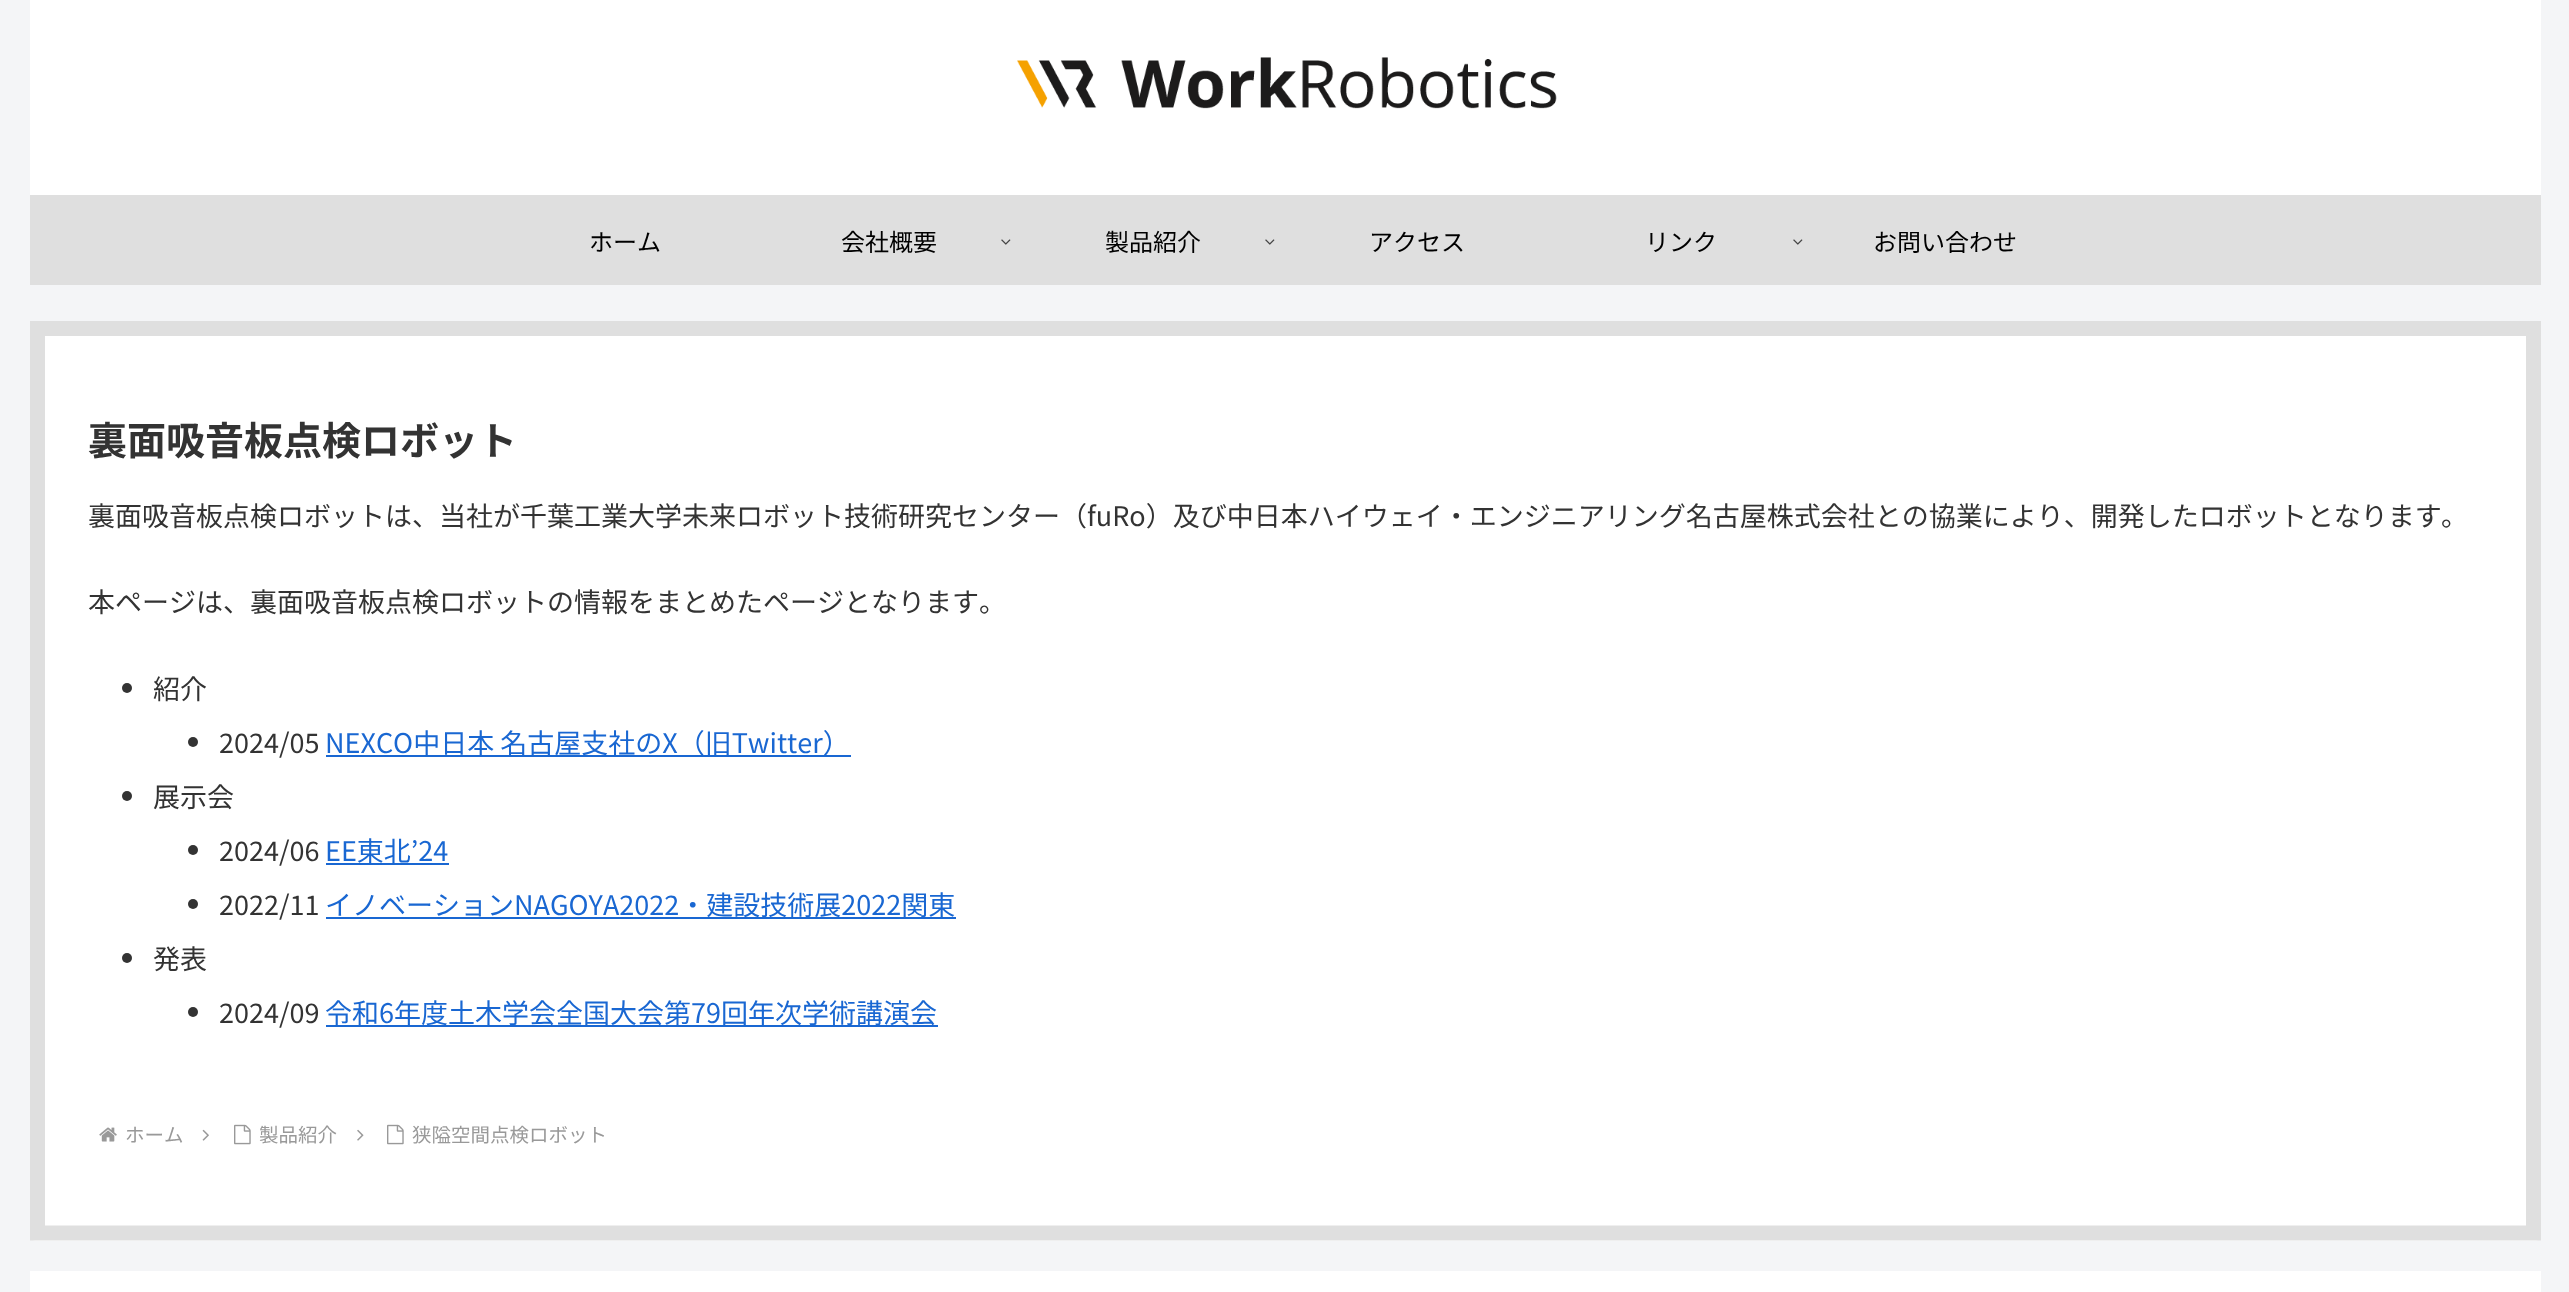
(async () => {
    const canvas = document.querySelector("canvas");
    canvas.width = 2569;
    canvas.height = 1292;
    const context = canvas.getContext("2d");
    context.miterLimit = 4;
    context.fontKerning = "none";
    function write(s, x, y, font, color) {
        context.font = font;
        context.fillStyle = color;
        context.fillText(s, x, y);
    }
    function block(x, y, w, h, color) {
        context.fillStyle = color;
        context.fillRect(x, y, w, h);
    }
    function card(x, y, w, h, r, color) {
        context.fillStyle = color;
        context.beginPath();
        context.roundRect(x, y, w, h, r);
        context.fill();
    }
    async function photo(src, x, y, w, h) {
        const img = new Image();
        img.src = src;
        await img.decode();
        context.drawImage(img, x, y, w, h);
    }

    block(0, 0, 2569, 1292, "rgb(244, 245, 247)");
    block(30, 0, 2511, 195, "rgb(255, 255, 255)");
    await photo("media/1.png", 1017, 57, 540, 52);
    block(30, 195, 2511, 90, "rgb(223, 223, 223)");
    write("ホーム", 589, 251, "24px Noto Sans JP", "rgb(0, 0, 0)");
    write("会社概要", 841, 251, "24px Noto Sans JP", "rgb(0, 0, 0)");
    await photo("media/2.png", 1001, 239, 10, 6);
    write("製品紹介", 1105, 251, "24px Noto Sans JP", "rgb(0, 0, 0)");
    await photo("media/2.png", 1265, 239, 10, 6);
    write("アクセス", 1369, 251, "24px Noto Sans JP", "rgb(0, 0, 0)");
    write("リンク", 1645, 251, "24px Noto Sans JP", "rgb(0, 0, 0)");
    await photo("media/2.png", 1793, 239, 10, 6);
    write("お問い合わせ", 1873, 251, "24px Noto Sans JP", "rgb(0, 0, 0)");
    card(30, 321, 2511, 920, 6, "rgb(255, 255, 255)");
    context.beginPath();
    context.moveTo(37.5, 328.5);
    context.lineTo(2533.5, 328.5);
    context.lineTo(2533.5, 1233);
    context.lineTo(37.5, 1233);
    context.closePath();
    context.strokeStyle = "rgb(223, 223, 223)";
    context.lineWidth = 15;
    context.stroke();
    write("裏面吸音板点検ロボット", 88, 455, "bold 39px Noto Sans JP", "rgb(51, 51, 51)");
    write("裏面吸音板点検ロボットは、当社が千葉工業大学未来ロボット技術研究センター（fuRo）及び中日本ハイウェイ・エンジニアリング名古屋株式会社との協業により、開発したロボットとなります", 88, 526, "27px Noto Sans JP", "rgb(51, 51, 51)");
    write("。", 2441, 526, "27px Noto Sans JP", "rgb(51, 51, 51)");
    write("本ページは、裏面吸音板点検ロボットの情報をまとめたページとなります。", 88, 612, "27px Noto Sans JP", "rgb(51, 51, 51)");
    context.beginPath();
    context.arc(127, 688, 5, 0, Math.PI * 2);
    context.fill();
    write("紹介", 153, 699, "27px Noto Sans JP", "rgb(51, 51, 51)");
    context.beginPath();
    context.arc(193, 742, 5, 0, Math.PI * 2);
    context.fill();
    write("2024/05", 219, 753, "27px Noto Sans JP", "rgb(51, 51, 51)");
    block(326, 755, 525, 2, "rgb(25, 103, 210)");
    write("NEXCO中日本 名古屋支社のX（旧Twitter）", 325, 753, "27px Noto Sans JP", "rgb(25, 103, 210)");
    context.fillStyle = "rgb(51, 51, 51)";
    context.beginPath();
    context.arc(127, 796, 5, 0, Math.PI * 2);
    context.fill();
    write("展示会", 153, 807, "27px Noto Sans JP", "rgb(51, 51, 51)");
    context.beginPath();
    context.arc(193, 850, 5, 0, Math.PI * 2);
    context.fill();
    write("2024/06", 219, 861, "27px Noto Sans JP", "rgb(51, 51, 51)");
    block(326, 863, 123, 2, "rgb(25, 103, 210)");
    write("EE東北’24", 325, 861, "27px Noto Sans JP", "rgb(25, 103, 210)");
    context.fillStyle = "rgb(51, 51, 51)";
    context.beginPath();
    context.arc(193, 904, 5, 0, Math.PI * 2);
    context.fill();
    write("2022/11", 219, 915, "27px Noto Sans JP", "rgb(51, 51, 51)");
    block(326, 917, 630, 2, "rgb(25, 103, 210)");
    write("イノベーションNAGOYA2022・建設技術展2022関東", 325, 915, "27px Noto Sans JP", "rgb(25, 103, 210)");
    context.fillStyle = "rgb(51, 51, 51)";
    context.beginPath();
    context.arc(127, 958, 5, 0, Math.PI * 2);
    context.fill();
    write("発表", 153, 969, "27px Noto Sans JP", "rgb(51, 51, 51)");
    context.beginPath();
    context.arc(193, 1012, 5, 0, Math.PI * 2);
    context.fill();
    write("2024/09", 219, 1023, "27px Noto Sans JP", "rgb(51, 51, 51)");
    block(326, 1025, 612, 2, "rgb(25, 103, 210)");
    write("令和6年度土木学会全国大会第79回年次学術講演会", 325, 1023, "27px Noto Sans JP", "rgb(25, 103, 210)");
    await photo("media/3.png", 99, 1127, 18, 15);
    write("ホーム", 125, 1142, "19.5px Noto Sans JP", "rgb(153, 153, 153)");
    await photo("media/4.png", 202, 1129, 7, 12);
    await photo("media/5.png", 234, 1124, 17, 21);
    write("製品紹介", 259, 1142, "19.5px Noto Sans JP", "rgb(153, 153, 153)");
    await photo("media/6.png", 357, 1129, 7, 12);
    await photo("media/5.png", 387, 1124, 17, 21);
    write("狭隘空間点検ロボット", 412, 1142, "19.5px Noto Sans JP", "rgb(153, 153, 153)");
    block(30, 1271, 2511, 21, "rgb(255, 255, 255)");
})();
